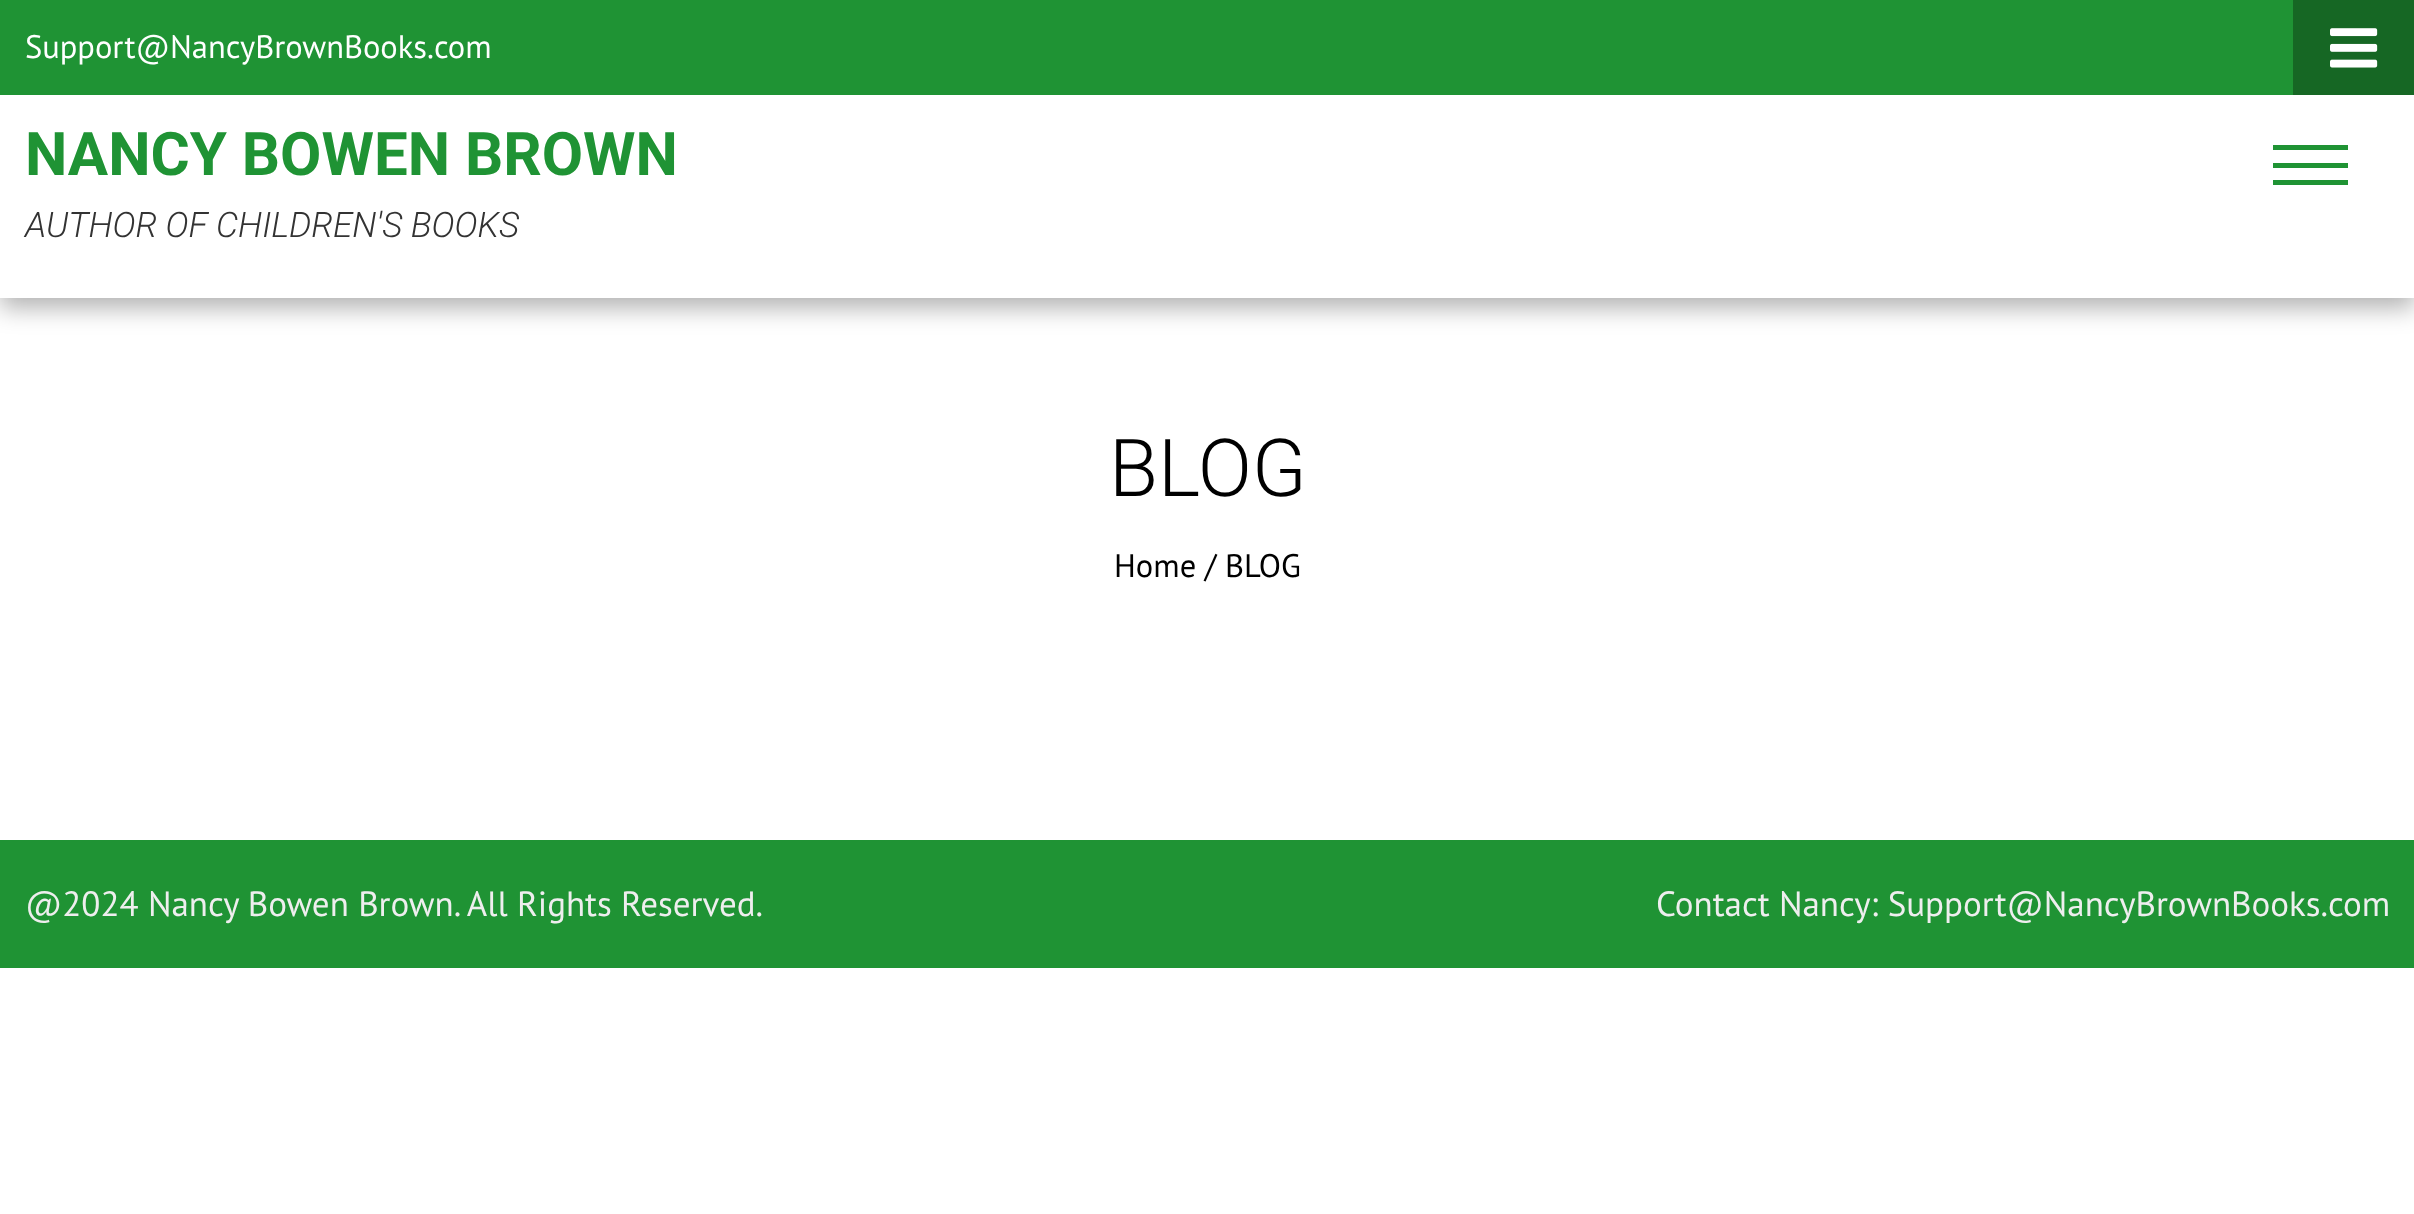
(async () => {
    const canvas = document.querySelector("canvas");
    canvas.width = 2414;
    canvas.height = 1214;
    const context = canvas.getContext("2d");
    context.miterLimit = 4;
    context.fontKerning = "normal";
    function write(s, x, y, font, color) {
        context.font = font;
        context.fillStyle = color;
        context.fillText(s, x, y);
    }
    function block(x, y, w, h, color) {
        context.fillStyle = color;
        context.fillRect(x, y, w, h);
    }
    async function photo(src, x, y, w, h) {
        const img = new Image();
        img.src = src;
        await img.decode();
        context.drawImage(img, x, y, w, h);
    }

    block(0, 0, 2414, 1214, "rgb(255, 255, 255)");
    context.save();
    context.beginPath();
    context.moveTo(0, 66);
    context.lineTo(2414, 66);
    context.lineTo(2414, 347);
    context.lineTo(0, 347);
    context.closePath();
    context.moveTo(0, 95);
    context.lineTo(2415, 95);
    context.lineTo(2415, 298);
    context.lineTo(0, 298);
    context.closePath();
    context.clip("evenodd");
    context.fillStyle = "rgba(0, 0, 0, 0.3)";
    context.filter = "blur(12.5px)";
    context.beginPath();
    context.rect(0, 105, 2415, 203);
    context.fill();
    context.filter = "none";
    context.restore();
    block(0, 0, 2293, 95, "rgb(31, 147, 52)");
    write("Support@NancyBrownBooks.com", 25, 58, "32.5px PT Sans", "rgb(255, 255, 255)");
    block(2293, 0, 121, 95, "rgb(22, 103, 36)");
    await photo("media/1.png", 2330, 28, 48, 40);
    block(0, 297, 2414, 1, "rgba(255, 255, 255, 0.6)");
    write("NANCY BOWEN BROWN", 25, 175, "bold 60px Roboto", "rgb(31, 147, 52)");
    write("AUTHOR OF CHILDREN'S BOOKS", 25, 237, "italic 300 35px Roboto", "rgb(51, 51, 51)");
    block(2273, 145, 75, 5, "rgb(31, 147, 52)");
    block(2273, 163, 75, 5, "rgb(31, 147, 52)");
    block(2273, 180, 75, 5, "rgb(31, 147, 52)");
    write("BLOG", 1109, 496, "300 80px Roboto", "rgb(0, 0, 0)");
    write("Home / BLOG", 1114, 577, "32.5px PT Sans", "rgb(0, 0, 0)");
    block(0, 840, 2414, 128, "rgb(31, 147, 52)");
    write("@2024 Nancy Bowen Brown. All Rights Reserved.", 25, 916, "35px PT Sans", "rgb(238, 238, 238)");
    write("Contact Nancy: Support@NancyBrownBooks.com", 1656, 916, "35px PT Sans", "rgb(238, 238, 238)");
})();
